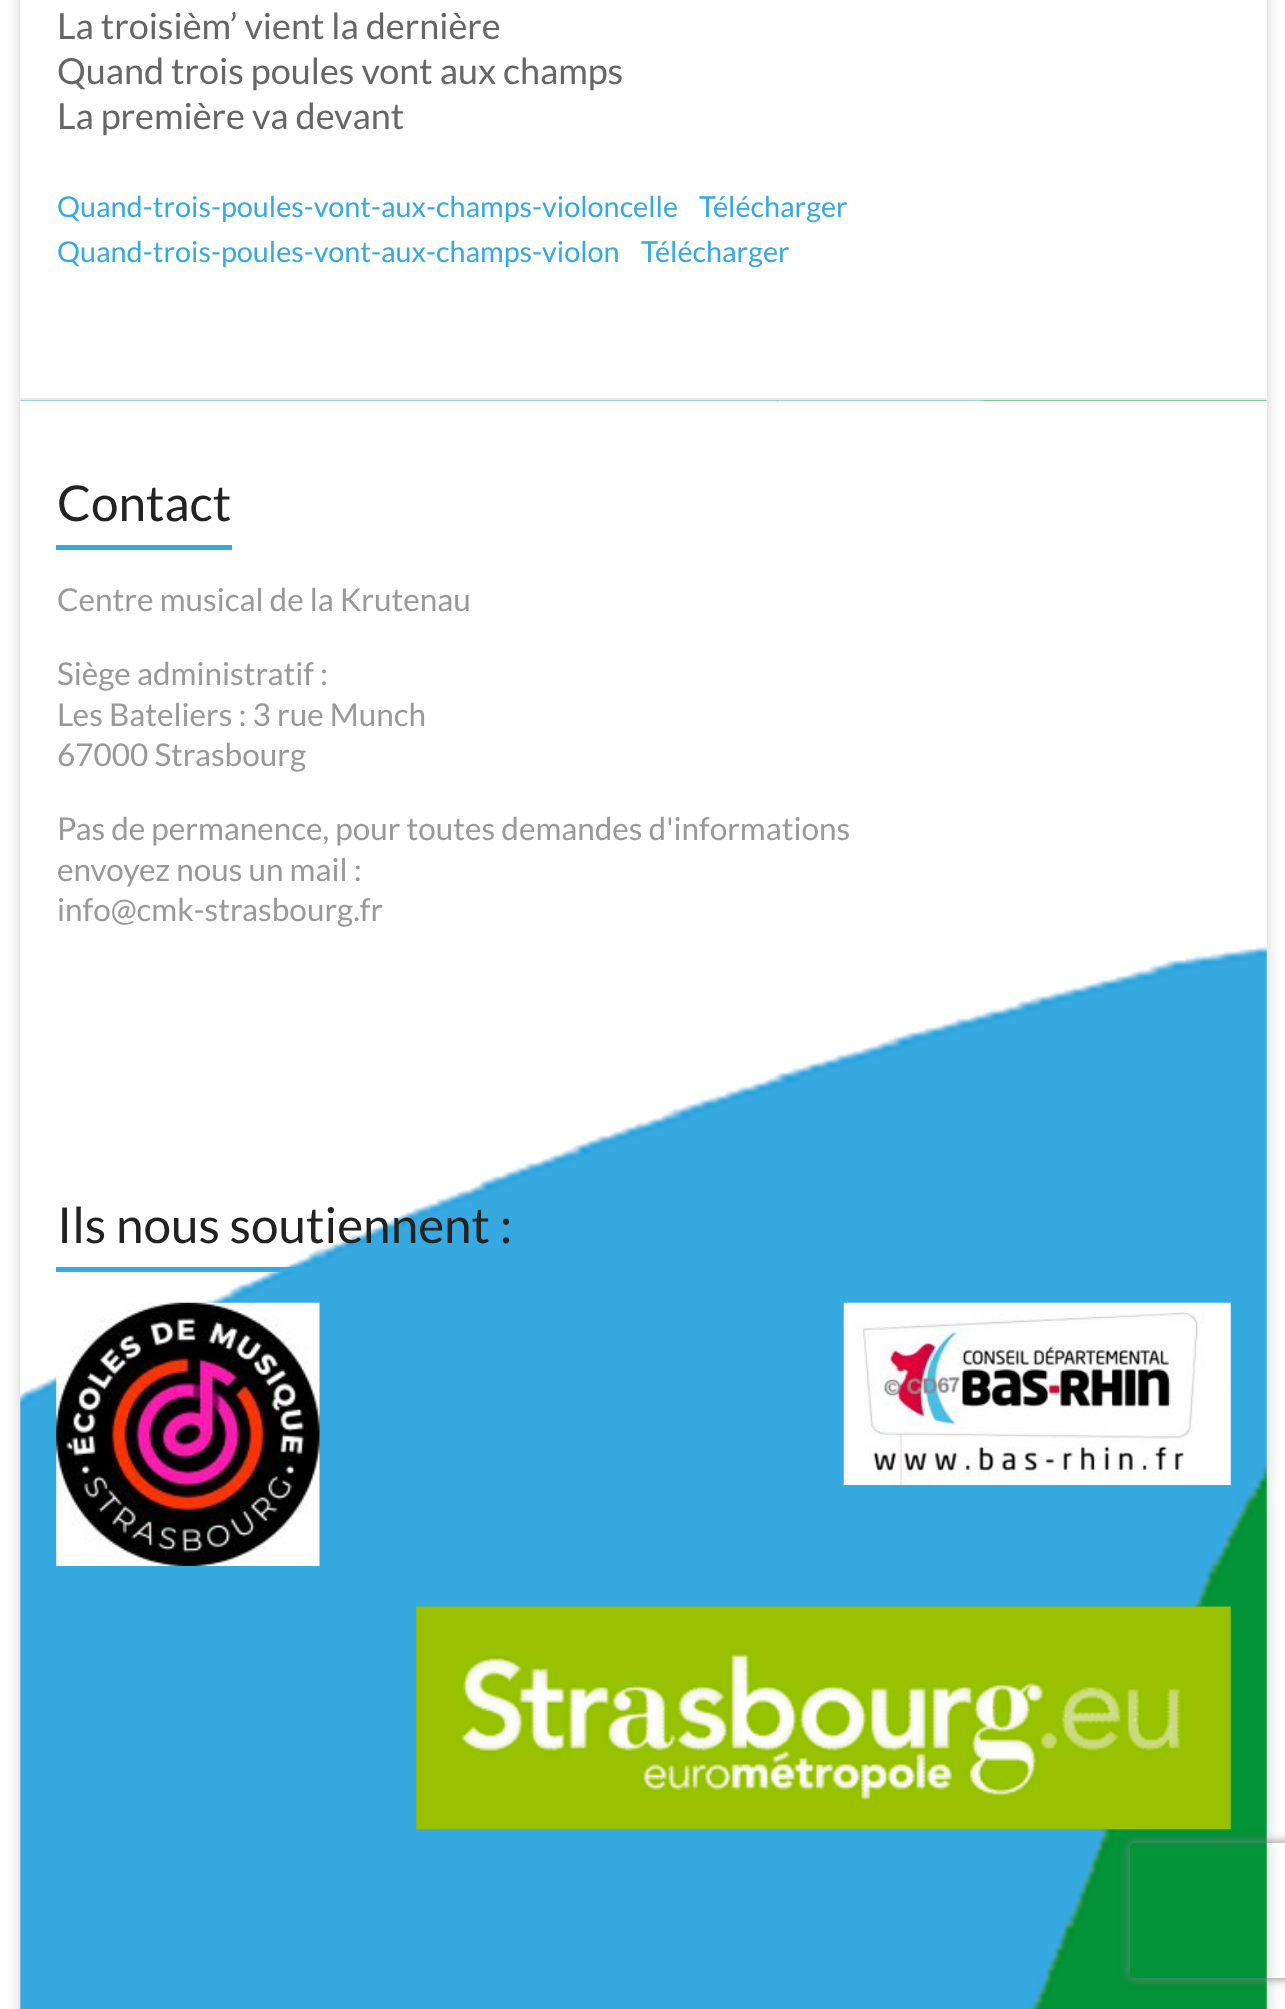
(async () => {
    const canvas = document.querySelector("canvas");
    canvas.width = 1285;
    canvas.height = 2009;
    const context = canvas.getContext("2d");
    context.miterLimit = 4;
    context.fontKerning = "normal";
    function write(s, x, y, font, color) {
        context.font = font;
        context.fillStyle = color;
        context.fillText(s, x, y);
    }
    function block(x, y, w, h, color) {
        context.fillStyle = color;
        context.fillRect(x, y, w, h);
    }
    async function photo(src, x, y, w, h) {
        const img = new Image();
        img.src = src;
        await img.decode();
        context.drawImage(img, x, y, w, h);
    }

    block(0, 0, 1285, 2009, "rgb(255, 255, 255)");
    context.fillStyle = "rgba(100, 100, 100, 0.3)";
    context.filter = "blur(7px)";
    context.beginPath();
    context.rect(20, -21, 1247, 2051);
    context.fill();
    context.filter = "none";
    block(20, 0, 1247, 2009, "rgb(255, 255, 255)");
    write("La troisièm’ vient la dernière", 57, 39, "36px Lato", "rgb(102, 102, 102)");
    write("Quand trois poules vont aux champs", 57, 84, "36px Lato", "rgb(102, 102, 102)");
    write("La première va devant", 57, 129, "36px Lato", "rgb(102, 102, 102)");
    write("Quand-trois-poules-vont-aux-champs-violoncelle", 57, 217, "28.8px Lato", "rgb(54, 169, 225)");
    write("Télécharger", 699, 217, "28.8px Lato", "rgb(54, 169, 225)");
    write("Quand-trois-poules-vont-aux-champs-violon", 57, 262, "28.8px Lato", "rgb(54, 169, 225)");
    write("Télécharger", 641, 262, "28.8px Lato", "rgb(54, 169, 225)");
    await photo("media/1.png", 20, 400, 1247, 1609);
    block(20, 398, 1247, 2, "rgb(234, 234, 234)");
    write("Contact", 57, 521, "49.5px Lato", "rgb(34, 34, 34)");
    block(56, 545, 176, 5, "rgb(54, 169, 225)");
    write("Centre musical de la Krutenau", 57, 611, "31.5px Lato", "rgb(153, 153, 153)");
    write("Siège administratif :", 57, 685, "31.5px Lato", "rgb(153, 153, 153)");
    write("Les Bateliers : 3 rue Munch", 57, 726, "31.5px Lato", "rgb(153, 153, 153)");
    write("67000 Strasbourg", 57, 766, "31.5px Lato", "rgb(153, 153, 153)");
    write("Pas de permanence, pour toutes demandes d'informations", 57, 840, "31.5px Lato", "rgb(153, 153, 153)");
    write("envoyez nous un mail :", 57, 881, "31.5px Lato", "rgb(153, 153, 153)");
    write("info@cmk-strasbourg.fr", 57, 921, "31.5px Lato", "rgb(153, 153, 153)");
    write("Ils nous soutiennent :", 57, 1243, "49.5px Lato", "rgb(34, 34, 34)");
    block(56, 1267, 256, 5, "rgb(54, 169, 225)");
    await photo("media/2.png", 56, 1302, 264, 264);
    await photo("media/3.png", 843, 1302, 388, 183);
    await photo("media/4.png", 416, 1606, 815, 224);
    context.save();
    context.beginPath();
    context.moveTo(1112, 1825);
    context.lineTo(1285, 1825);
    context.lineTo(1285, 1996);
    context.lineTo(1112, 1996);
    context.closePath();
    context.moveTo(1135, 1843);
    context.lineTo(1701, 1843);
    context.bezierCurveTo(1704, 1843, 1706, 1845, 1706, 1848);
    context.lineTo(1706, 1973);
    context.bezierCurveTo(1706, 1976, 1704, 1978, 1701, 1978);
    context.lineTo(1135, 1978);
    context.bezierCurveTo(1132, 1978, 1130, 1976, 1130, 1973);
    context.lineTo(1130, 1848);
    context.bezierCurveTo(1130, 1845, 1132, 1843, 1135, 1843);
    context.closePath();
    context.clip("evenodd");
    context.fillStyle = "rgb(128, 128, 128)";
    context.filter = "blur(5.5px)";
    context.beginPath();
    context.roundRect(1130, 1843, 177, 135, 5);
    context.fill();
    context.filter = "none";
    context.restore();
})();
